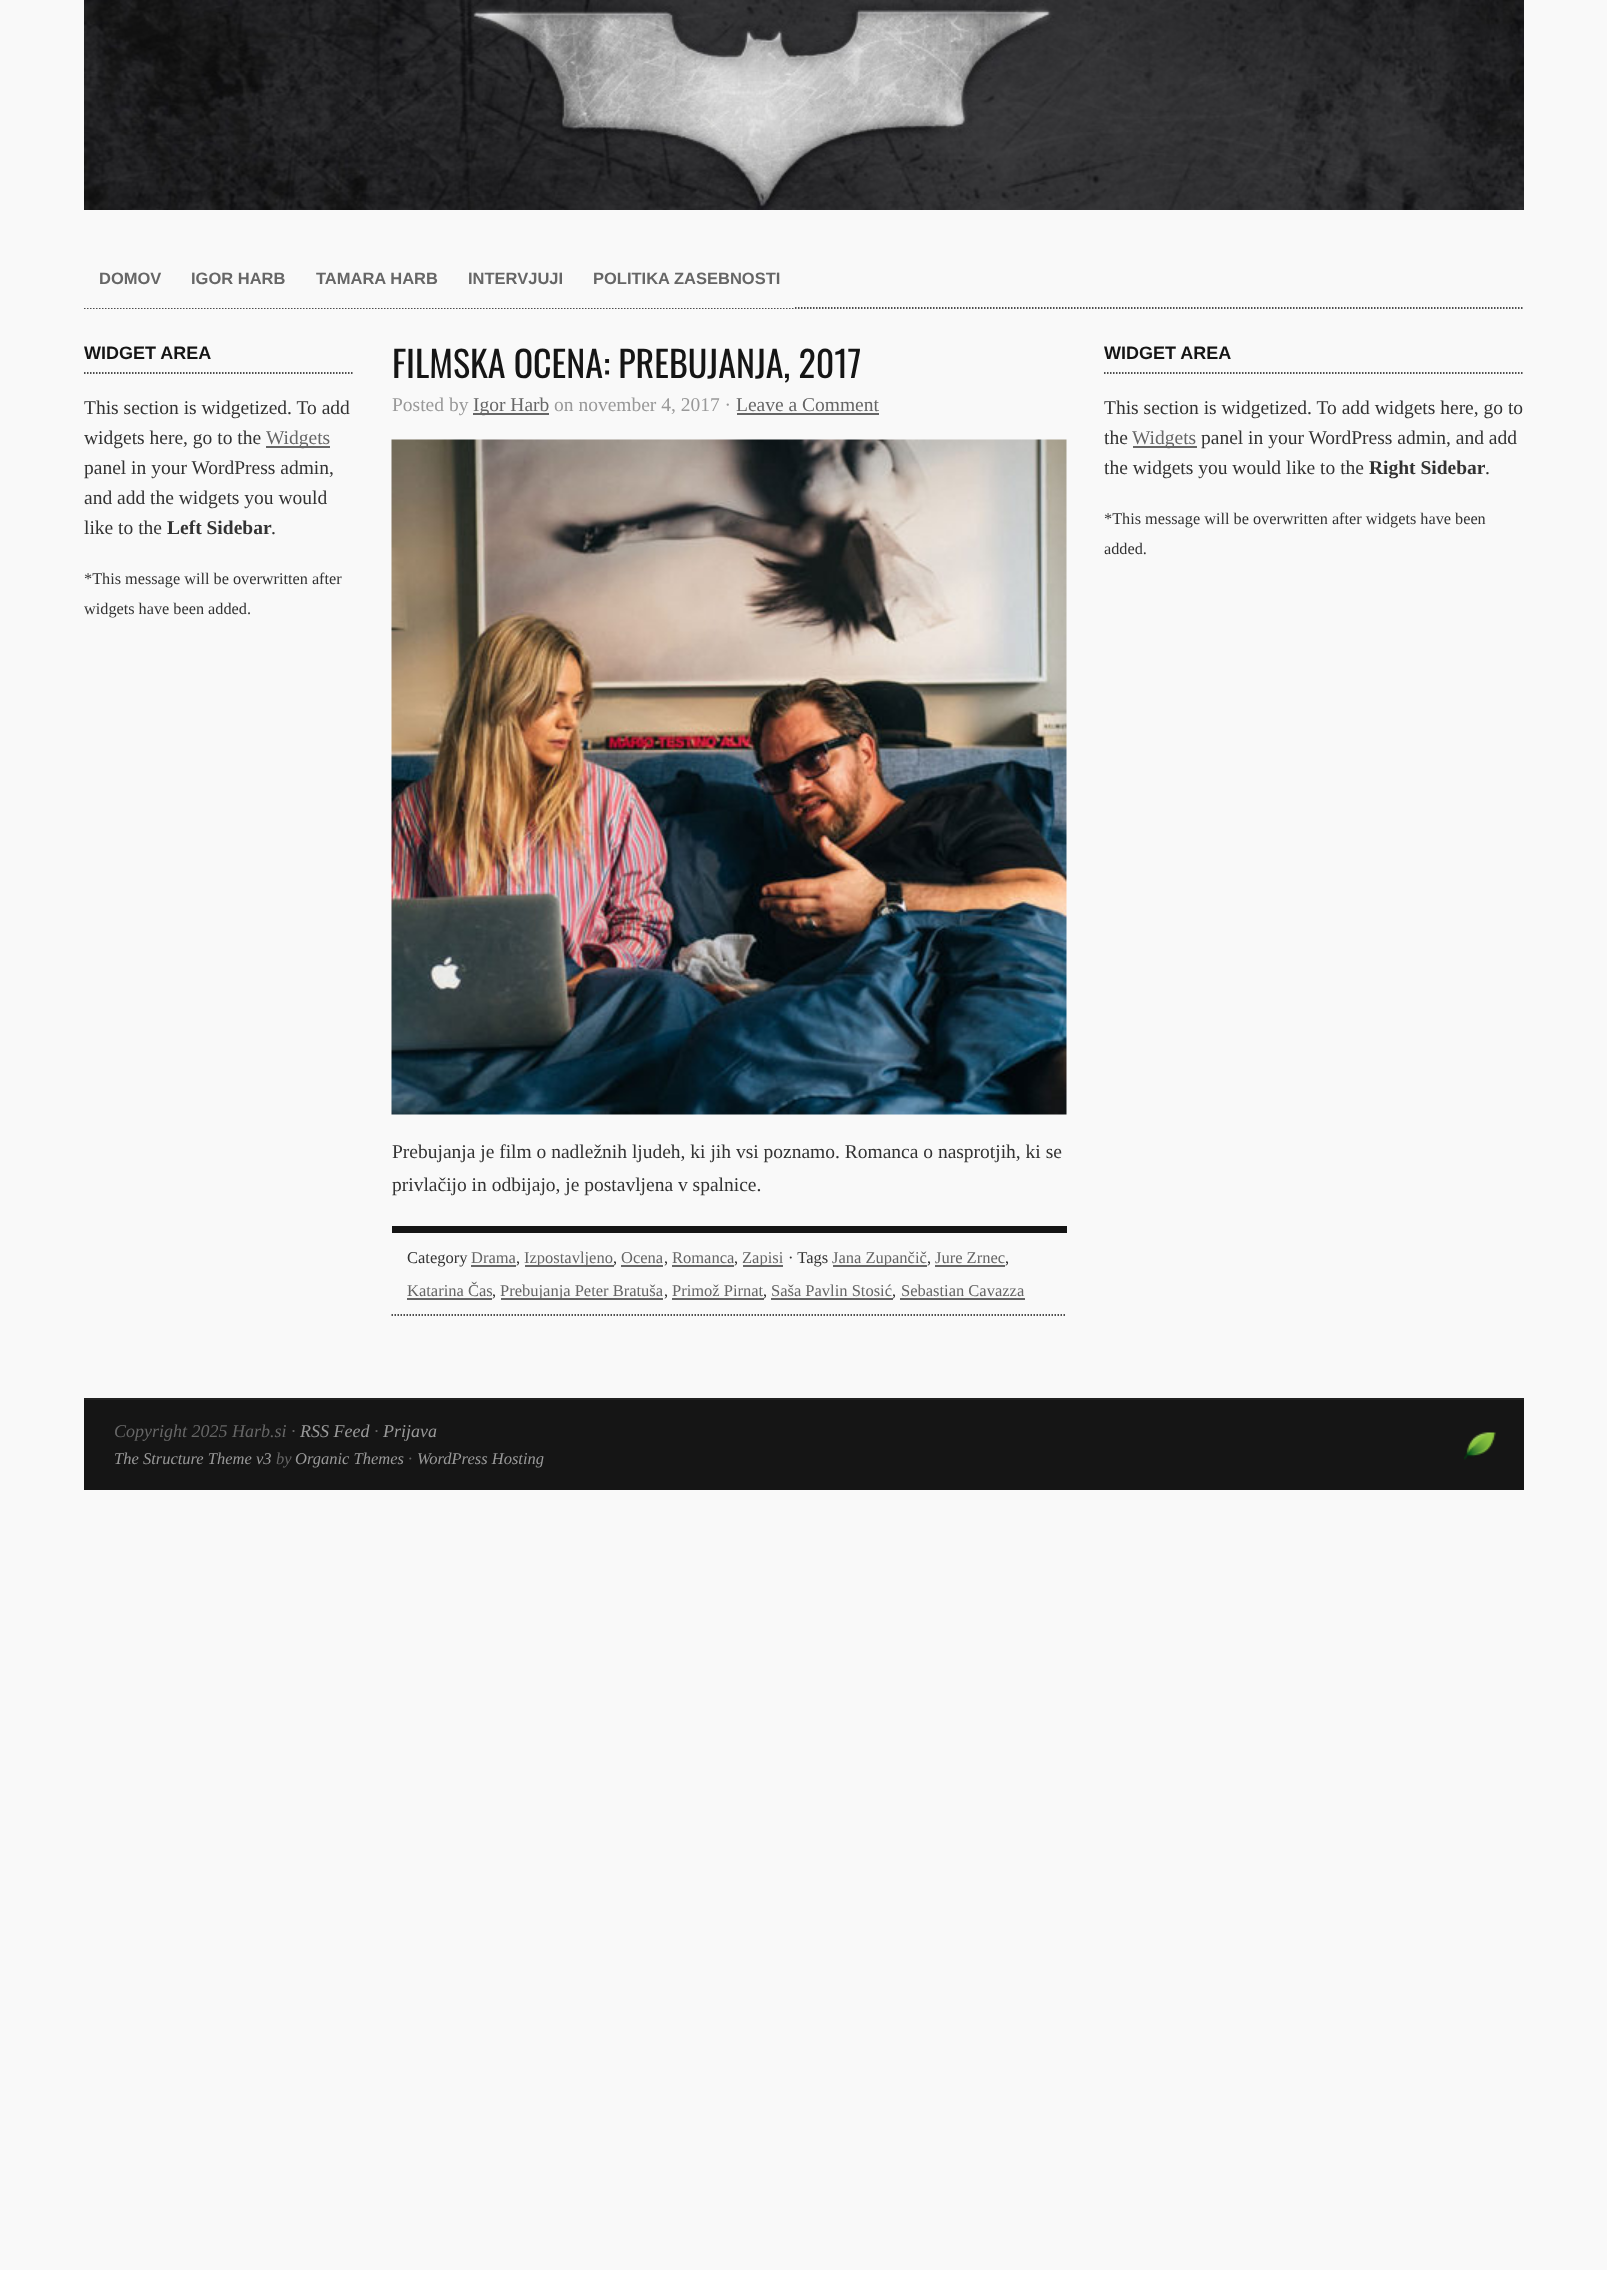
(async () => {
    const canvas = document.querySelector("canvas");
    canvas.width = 1607;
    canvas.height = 2270;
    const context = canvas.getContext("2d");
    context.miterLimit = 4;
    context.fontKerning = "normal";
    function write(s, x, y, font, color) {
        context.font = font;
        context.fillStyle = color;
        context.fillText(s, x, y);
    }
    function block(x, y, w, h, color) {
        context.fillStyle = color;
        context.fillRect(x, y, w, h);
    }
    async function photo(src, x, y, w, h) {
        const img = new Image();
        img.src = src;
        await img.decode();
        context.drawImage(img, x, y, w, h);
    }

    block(0, 0, 1607, 2270, "rgb(249, 249, 249)");
    await photo("media/1.png", 84, 0, 1440, 210);
    context.beginPath();
    context.moveTo(84, 308);
    context.lineTo(1524, 308);
    context.strokeStyle = "rgb(21, 21, 21)";
    context.lineWidth = 1.5;
    context.setLineDash([1.5, 1.5]);
    context.stroke();
    block(84, 307, 711, 1, "rgb(249, 249, 249)");
    write("DOMOV", 99, 284, "bold 16.5px Liberation Sans", "rgb(102, 102, 102)");
    write("IGOR HARB", 191, 284, "bold 16.5px Liberation Sans", "rgb(102, 102, 102)");
    write("TAMARA HARB", 316, 284, "bold 16.5px Liberation Sans", "rgb(102, 102, 102)");
    write("INTERVJUJI", 468, 284, "bold 16.5px Liberation Sans", "rgb(102, 102, 102)");
    write("POLITIKA ZASEBNOSTI", 593, 284, "bold 16.5px Liberation Sans", "rgb(102, 102, 102)");
    context.beginPath();
    context.moveTo(84, 373);
    context.lineTo(354, 373);
    context.stroke();
    write("WIDGET AREA", 84, 359, "bold 18px Liberation Sans", "rgb(21, 21, 21)");
    write("This section is widgetized. To add", 84, 414, "19.5px Liberation Serif", "rgb(51, 51, 51)");
    write("widgets here, go to the", 84, 444, "19.5px Liberation Serif", "rgb(51, 51, 51)");
    block(266, 446, 64, 2, "rgb(102, 102, 102)");
    write("Widgets", 266, 444, "19.5px Liberation Serif", "rgb(102, 102, 102)");
    write("panel in your WordPress admin,", 84, 474, "19.5px Liberation Serif", "rgb(51, 51, 51)");
    write("and add the widgets you would", 84, 504, "19.5px Liberation Serif", "rgb(51, 51, 51)");
    write("like to the", 84, 534, "19.5px Liberation Serif", "rgb(51, 51, 51)");
    write("Left Sidebar", 167, 534, "bold 19.5px Liberation Serif", "rgb(51, 51, 51)");
    write(".", 271, 534, "19.5px Liberation Serif", "rgb(51, 51, 51)");
    write("*This message will be overwritten after", 84, 584, "16.25px Liberation Serif", "rgb(51, 51, 51)");
    write("widgets have been added.", 84, 614, "16.25px Liberation Serif", "rgb(51, 51, 51)");
    write("FILMSKA OCENA: PREBUJANJA, 2017", 392, 378, "36px Oswald", "rgb(21, 21, 21)");
    write("Posted by", 392, 411, "19.5px Liberation Serif", "rgb(153, 153, 153)");
    block(473, 413, 76, 2, "rgb(102, 102, 102)");
    write("Igor Harb", 473, 411, "19.5px Liberation Serif", "rgb(102, 102, 102)");
    write("on november 4, 2017 ·", 554, 411, "19.5px Liberation Serif", "rgb(153, 153, 153)");
    write("Leave a Comment", 736, 411, "19.5px Liberation Serif", "rgb(102, 102, 102)");
    block(737, 413, 142, 2, "rgb(102, 102, 102)");
    await photo("media/2.png", 391, 439, 676, 676);
    write("Prebujanja je film o nadležnih ljudeh, ki jih vsi poznamo. Romanca o nasprotjih, ki se", 392, 1158, "19.5px Liberation Serif", "rgb(51, 51, 51)");
    write("privlačijo in odbijajo, je postavljena v spalnice.", 392, 1191, "19.5px Liberation Serif", "rgb(51, 51, 51)");
    block(392, 1226, 675, 7, "rgb(21, 21, 21)");
    context.beginPath();
    context.moveTo(391.5, 1315);
    context.lineTo(1066.5, 1315);
    context.stroke();
    write("Category", 407, 1263, "16.5px Liberation Serif", "rgb(51, 51, 51)");
    write("Drama", 471, 1263, "16.5px Liberation Serif", "rgb(102, 102, 102)");
    block(471, 1265, 45, 2, "rgb(102, 102, 102)");
    write(",", 516, 1263, "16.5px Liberation Serif", "rgb(51, 51, 51)");
    block(525, 1265, 89, 2, "rgb(102, 102, 102)");
    write("Izpostavljeno", 524, 1263, "16.5px Liberation Serif", "rgb(102, 102, 102)");
    write(",", 613, 1263, "16.5px Liberation Serif", "rgb(51, 51, 51)");
    write("Ocena", 621, 1263, "16.5px Liberation Serif", "rgb(102, 102, 102)");
    block(621, 1265, 42, 2, "rgb(102, 102, 102)");
    write(",", 664, 1263, "16.5px Liberation Serif", "rgb(51, 51, 51)");
    write("Romanca", 672, 1263, "16.5px Liberation Serif", "rgb(102, 102, 102)");
    block(672, 1265, 62, 2, "rgb(102, 102, 102)");
    write(",", 734, 1263, "16.5px Liberation Serif", "rgb(51, 51, 51)");
    block(743, 1265, 40, 2, "rgb(102, 102, 102)");
    write("Zapisi", 742, 1263, "16.5px Liberation Serif", "rgb(102, 102, 102)");
    write("· Tags", 788, 1263, "16.5px Liberation Serif", "rgb(51, 51, 51)");
    block(833, 1265, 94, 2, "rgb(102, 102, 102)");
    write("Jana Zupančič", 832, 1263, "16.5px Liberation Serif", "rgb(102, 102, 102)");
    write(",", 927, 1263, "16.5px Liberation Serif", "rgb(51, 51, 51)");
    write("Jure Zrnec", 935, 1263, "16.5px Liberation Serif", "rgb(102, 102, 102)");
    block(935, 1265, 70, 2, "rgb(102, 102, 102)");
    write(",", 1005, 1263, "16.5px Liberation Serif", "rgb(51, 51, 51)");
    write("Katarina Čas", 407, 1296, "16.5px Liberation Serif", "rgb(102, 102, 102)");
    block(407, 1298, 85, 2, "rgb(102, 102, 102)");
    write(",", 492, 1296, "16.5px Liberation Serif", "rgb(51, 51, 51)");
    block(501, 1298, 162, 2, "rgb(102, 102, 102)");
    write("Prebujanja Peter Bratuša", 500, 1296, "16.5px Liberation Serif", "rgb(102, 102, 102)");
    write(",", 664, 1296, "16.5px Liberation Serif", "rgb(51, 51, 51)");
    write("Primož Pirnat", 672, 1296, "16.5px Liberation Serif", "rgb(102, 102, 102)");
    block(672, 1298, 92, 2, "rgb(102, 102, 102)");
    write(",", 763, 1296, "16.5px Liberation Serif", "rgb(51, 51, 51)");
    write("Saša Pavlin Stosić", 771, 1296, "16.5px Liberation Serif", "rgb(102, 102, 102)");
    block(771, 1298, 122, 2, "rgb(102, 102, 102)");
    write(",", 892, 1296, "16.5px Liberation Serif", "rgb(51, 51, 51)");
    write("Sebastian Cavazza", 901, 1296, "16.5px Liberation Serif", "rgb(102, 102, 102)");
    block(900, 1298, 125, 2, "rgb(102, 102, 102)");
    context.beginPath();
    context.moveTo(1104, 373);
    context.lineTo(1524, 373);
    context.stroke();
    write("WIDGET AREA", 1104, 359, "bold 18px Liberation Sans", "rgb(21, 21, 21)");
    write("This section is widgetized. To add widgets here, go to", 1104, 414, "19.5px Liberation Serif", "rgb(51, 51, 51)");
    write("the", 1104, 444, "19.5px Liberation Serif", "rgb(51, 51, 51)");
    block(1133, 446, 64, 2, "rgb(102, 102, 102)");
    write("Widgets", 1132, 444, "19.5px Liberation Serif", "rgb(102, 102, 102)");
    write("panel in your WordPress admin, and add", 1201, 444, "19.5px Liberation Serif", "rgb(51, 51, 51)");
    write("the widgets you would like to the", 1104, 474, "19.5px Liberation Serif", "rgb(51, 51, 51)");
    write("Right Sidebar", 1369, 474, "bold 19.5px Liberation Serif", "rgb(51, 51, 51)");
    write(".", 1485, 474, "19.5px Liberation Serif", "rgb(51, 51, 51)");
    write("*This message will be overwritten after widgets have been", 1104, 524, "16.25px Liberation Serif", "rgb(51, 51, 51)");
    write("added.", 1104, 554, "16.25px Liberation Serif", "rgb(51, 51, 51)");
    block(84, 1400, 1440, 90, "rgb(21, 21, 21)");
    block(84, 1398, 1440, 2, "rgb(34, 34, 34)");
    write("Copyright 2025 Harb.si ·", 114, 1437, "italic 18px Liberation Serif", "rgb(102, 102, 102)");
    write("RSS Feed", 300, 1437, "italic 18px Liberation Serif", "rgb(153, 153, 153)");
    write("·", 374, 1437, "italic 18px Liberation Serif", "rgb(102, 102, 102)");
    write("Prijava", 383, 1437, "italic 18px Liberation Serif", "rgb(153, 153, 153)");
    write("The Structure Theme v3", 114, 1464, "italic 16.5px Liberation Serif", "rgb(153, 153, 153)");
    write("by", 276, 1464, "italic 16.5px Liberation Serif", "rgb(102, 102, 102)");
    write("Organic Themes", 295, 1464, "italic 16.5px Liberation Serif", "rgb(153, 153, 153)");
    write("·", 408, 1464, "italic 16.5px Liberation Serif", "rgb(102, 102, 102)");
    write("WordPress Hosting", 417, 1464, "italic 16.5px Liberation Serif", "rgb(153, 153, 153)");
    await photo("media/3.png", 1464, 1432, 32, 28);
})();
